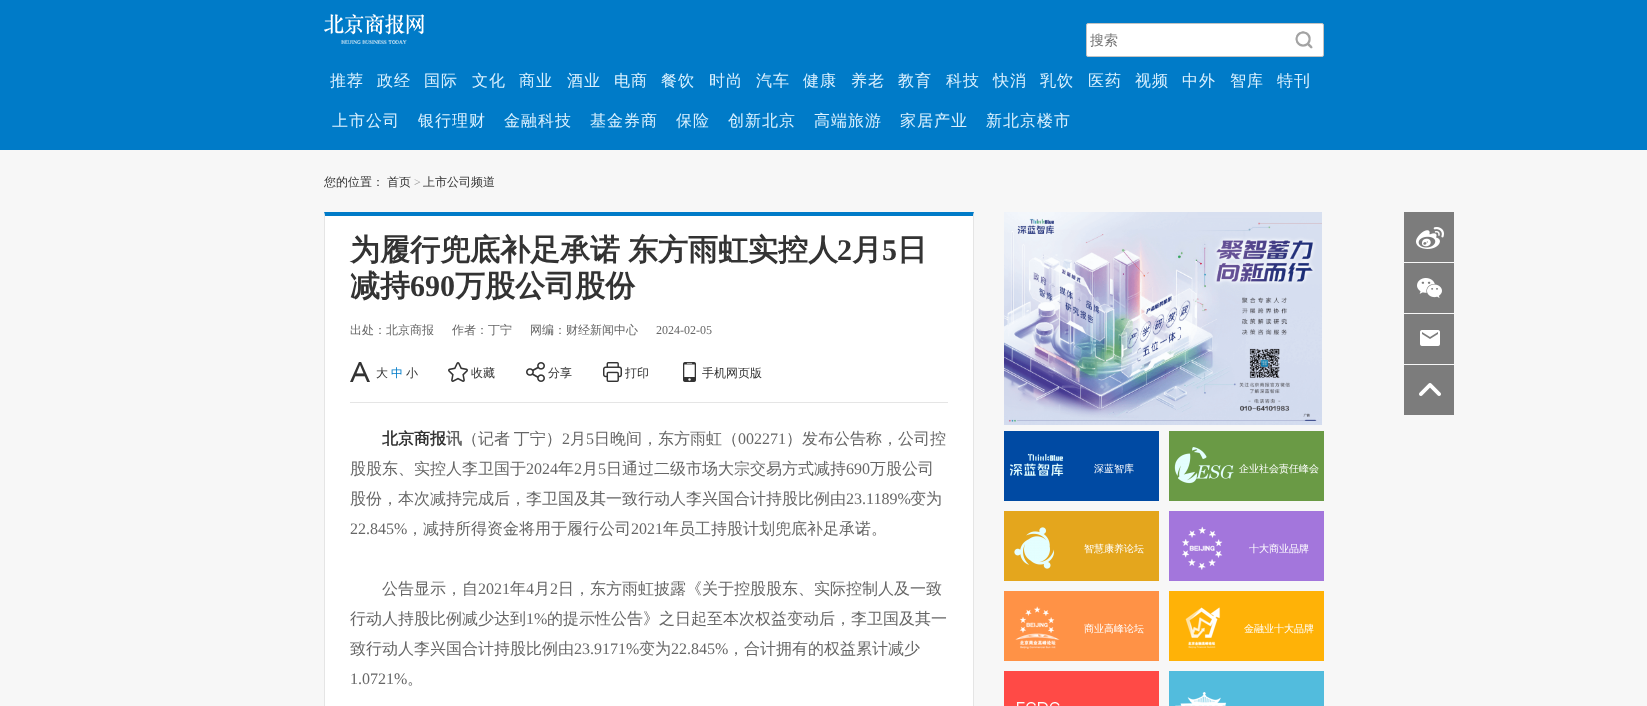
(async () => {
    const canvas = document.querySelector("canvas");
    canvas.width = 1647;
    canvas.height = 706;
    const context = canvas.getContext("2d");
    context.miterLimit = 4;
    context.fontKerning = "normal";
    function write(s, x, y, font, color) {
        context.font = font;
        context.fillStyle = color;
        context.fillText(s, x, y);
    }
    function block(x, y, w, h, color) {
        context.fillStyle = color;
        context.fillRect(x, y, w, h);
    }
    async function photo(src, x, y, w, h) {
        const img = new Image();
        img.src = src;
        await img.decode();
        context.drawImage(img, x, y, w, h);
    }

    block(0, 0, 1647, 706, "rgb(247, 247, 247)");
    block(0, 0, 1647, 150, "rgb(0, 123, 200)");
    await photo("media/1.png", 324, 14, 100, 30);
    context.fillStyle = "rgb(255, 255, 255)";
    context.beginPath();
    context.roundRect(1086.5, 23.5, 237, 33, 1.5);
    context.fill();
    context.strokeStyle = "rgb(195, 195, 195)";
    context.stroke();
    write("搜索", 1090, 45, "500 14px WenQuanYi Zen Hei", "rgb(117, 117, 117)");
    await photo("media/2.png", 1295, 31, 18, 18);
    context.letterSpacing = "1px";
    write("推荐", 330, 86, "500 16px WenQuanYi Zen Hei", "rgb(218, 241, 255)");
    write("政经", 377, 86, "500 16px WenQuanYi Zen Hei", "rgb(218, 241, 255)");
    write("国际", 424, 86, "500 16px WenQuanYi Zen Hei", "rgb(218, 241, 255)");
    write("文化", 472, 86, "500 16px WenQuanYi Zen Hei", "rgb(218, 241, 255)");
    write("商业", 519, 86, "500 16px WenQuanYi Zen Hei", "rgb(218, 241, 255)");
    write("酒业", 567, 86, "500 16px WenQuanYi Zen Hei", "rgb(218, 241, 255)");
    write("电商", 614, 86, "500 16px WenQuanYi Zen Hei", "rgb(218, 241, 255)");
    write("餐饮", 661, 86, "500 16px WenQuanYi Zen Hei", "rgb(218, 241, 255)");
    write("时尚", 709, 86, "500 16px WenQuanYi Zen Hei", "rgb(218, 241, 255)");
    write("汽车", 756, 86, "500 16px WenQuanYi Zen Hei", "rgb(218, 241, 255)");
    write("健康", 803, 86, "500 16px WenQuanYi Zen Hei", "rgb(218, 241, 255)");
    write("养老", 851, 86, "500 16px WenQuanYi Zen Hei", "rgb(218, 241, 255)");
    write("教育", 898, 86, "500 16px WenQuanYi Zen Hei", "rgb(218, 241, 255)");
    write("科技", 946, 86, "500 16px WenQuanYi Zen Hei", "rgb(218, 241, 255)");
    write("快消", 993, 86, "500 16px WenQuanYi Zen Hei", "rgb(218, 241, 255)");
    write("乳饮", 1040, 86, "500 16px WenQuanYi Zen Hei", "rgb(218, 241, 255)");
    write("医药", 1088, 86, "500 16px WenQuanYi Zen Hei", "rgb(218, 241, 255)");
    write("视频", 1135, 86, "500 16px WenQuanYi Zen Hei", "rgb(218, 241, 255)");
    write("中外", 1182, 86, "500 16px WenQuanYi Zen Hei", "rgb(218, 241, 255)");
    write("智库", 1230, 86, "500 16px WenQuanYi Zen Hei", "rgb(218, 241, 255)");
    write("特刊", 1277, 86, "500 16px WenQuanYi Zen Hei", "rgb(218, 241, 255)");
    write("上市公司", 332, 126, "500 16px WenQuanYi Zen Hei", "rgb(218, 241, 255)");
    write("银行理财", 418, 126, "500 16px WenQuanYi Zen Hei", "rgb(218, 241, 255)");
    write("金融科技", 504, 126, "500 16px WenQuanYi Zen Hei", "rgb(218, 241, 255)");
    write("基金券商", 590, 126, "500 16px WenQuanYi Zen Hei", "rgb(218, 241, 255)");
    write("保险", 676, 126, "500 16px WenQuanYi Zen Hei", "rgb(218, 241, 255)");
    write("创新北京", 728, 126, "500 16px WenQuanYi Zen Hei", "rgb(218, 241, 255)");
    write("高端旅游", 814, 126, "500 16px WenQuanYi Zen Hei", "rgb(218, 241, 255)");
    write("家居产业", 900, 126, "500 16px WenQuanYi Zen Hei", "rgb(218, 241, 255)");
    write("新北京楼市", 986, 126, "500 16px WenQuanYi Zen Hei", "rgb(218, 241, 255)");
    context.letterSpacing = "0px";
    write("您的位置：", 324, 186, "500 12px WenQuanYi Zen Hei", "rgb(51, 51, 51)");
    write("首页", 387, 186, "500 12px WenQuanYi Zen Hei", "rgb(51, 51, 51)");
    write(">", 414, 186, "12px Liberation Serif", "rgb(153, 153, 153)");
    write("上市公司频道", 423, 186, "500 12px WenQuanYi Zen Hei", "rgb(51, 51, 51)");
    block(325, 216, 648, 490, "rgb(255, 255, 255)");
    context.fillStyle = "rgb(0, 123, 200)";
    context.beginPath();
    context.moveTo(324, 212);
    context.lineTo(974, 212);
    context.lineTo(973, 216);
    context.lineTo(325, 216);
    context.closePath();
    context.fill();
    context.fillStyle = "rgb(229, 229, 229)";
    context.beginPath();
    context.moveTo(974, 212);
    context.lineTo(974, 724);
    context.lineTo(973, 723);
    context.lineTo(973, 216);
    context.closePath();
    context.fill();
    context.beginPath();
    context.moveTo(324, 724);
    context.lineTo(324, 212);
    context.lineTo(325, 216);
    context.lineTo(325, 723);
    context.closePath();
    context.fill();
    block(350, 402, 598, 1, "rgb(229, 229, 229)");
    context.wordSpacing = "-1px";
    write("为履行兜底补足承诺 东方雨虹实控人", 350, 260, "bold 30px WenQuanYi Zen Hei", "rgb(51, 51, 51)");
    context.wordSpacing = "0px";
    write("2", 837, 260, "bold 30px Liberation Serif", "rgb(51, 51, 51)");
    write("月", 852, 260, "bold 30px WenQuanYi Zen Hei", "rgb(51, 51, 51)");
    write("5", 882, 260, "bold 30px Liberation Serif", "rgb(51, 51, 51)");
    write("日", 897, 260, "bold 30px WenQuanYi Zen Hei", "rgb(51, 51, 51)");
    write("减持", 350, 296, "bold 30px WenQuanYi Zen Hei", "rgb(51, 51, 51)");
    write("690", 410, 296, "bold 30px Liberation Serif", "rgb(51, 51, 51)");
    write("万股公司股份", 455, 296, "bold 30px WenQuanYi Zen Hei", "rgb(51, 51, 51)");
    write("出处：北京商报", 350, 334, "500 12px WenQuanYi Zen Hei", "rgb(102, 102, 102)");
    write("作者：丁宁", 452, 334, "500 12px WenQuanYi Zen Hei", "rgb(102, 102, 102)");
    write("网编：财经新闻中心", 530, 334, "500 12px WenQuanYi Zen Hei", "rgb(102, 102, 102)");
    write("2024-02-05", 656, 334, "12px Liberation Serif", "rgb(102, 102, 102)");
    await photo("media/3.png", 350, 362, 20, 20);
    write("大", 376, 377, "500 12px WenQuanYi Zen Hei", "rgb(51, 51, 51)");
    write("中", 391, 377, "500 12px WenQuanYi Zen Hei", "rgb(0, 123, 200)");
    write("小", 406, 377, "500 12px WenQuanYi Zen Hei", "rgb(51, 51, 51)");
    await photo("media/4.png", 448, 362, 20, 20);
    write("收藏", 471, 377, "500 12px WenQuanYi Zen Hei", "rgb(51, 51, 51)");
    await photo("media/5.png", 526, 362, 19, 20);
    write("分享", 548, 377, "500 12px WenQuanYi Zen Hei", "rgb(51, 51, 51)");
    await photo("media/6.png", 603, 362, 19, 20);
    write("打印", 625, 377, "500 12px WenQuanYi Zen Hei", "rgb(51, 51, 51)");
    await photo("media/7.png", 683, 362, 13, 20);
    write("手机网页版", 702, 377, "500 12px WenQuanYi Zen Hei", "rgb(51, 51, 51)");
    write("北京商报", 382, 444, "bold 16px WenQuanYi Zen Hei", "rgb(51, 51, 51)");
    write("讯", 446, 444, "bold 16px WenQuanYi Zen Hei", "rgb(102, 102, 102)");
    context.wordSpacing = "-1px";
    write("（记者 丁宁）", 462, 444, "500 16px WenQuanYi Zen Hei", "rgb(102, 102, 102)");
    context.wordSpacing = "0px";
    write("2", 562, 444, "16px Liberation Serif", "rgb(102, 102, 102)");
    write("月", 570, 444, "500 16px WenQuanYi Zen Hei", "rgb(102, 102, 102)");
    write("5", 586, 444, "16px Liberation Serif", "rgb(102, 102, 102)");
    write("日晚间，东方雨虹（", 594, 444, "500 16px WenQuanYi Zen Hei", "rgb(102, 102, 102)");
    write("002271", 738, 444, "16px Liberation Serif", "rgb(102, 102, 102)");
    write("）发布公告称，公司控", 786, 444, "500 16px WenQuanYi Zen Hei", "rgb(102, 102, 102)");
    write("股股东、实控人李卫国于", 350, 474, "500 16px WenQuanYi Zen Hei", "rgb(102, 102, 102)");
    write("2024", 526, 474, "16px Liberation Serif", "rgb(102, 102, 102)");
    write("年", 558, 474, "500 16px WenQuanYi Zen Hei", "rgb(102, 102, 102)");
    write("2", 574, 474, "16px Liberation Serif", "rgb(102, 102, 102)");
    write("月", 582, 474, "500 16px WenQuanYi Zen Hei", "rgb(102, 102, 102)");
    write("5", 598, 474, "16px Liberation Serif", "rgb(102, 102, 102)");
    write("日通过二级市场大宗交易方式减持", 606, 474, "500 16px WenQuanYi Zen Hei", "rgb(102, 102, 102)");
    write("690", 846, 474, "16px Liberation Serif", "rgb(102, 102, 102)");
    write("万股公司", 870, 474, "500 16px WenQuanYi Zen Hei", "rgb(102, 102, 102)");
    write("股份，本次减持完成后，李卫国及其一致行动人李兴国合计持股比例由", 350, 504, "500 16px WenQuanYi Zen Hei", "rgb(102, 102, 102)");
    write("23.1189%", 846, 504, "16px Liberation Serif", "rgb(102, 102, 102)");
    write("变为", 910, 504, "500 16px WenQuanYi Zen Hei", "rgb(102, 102, 102)");
    write("22.845%", 350, 534, "16px Liberation Serif", "rgb(102, 102, 102)");
    write("，减持所得资金将用于履行公司", 407, 534, "500 16px WenQuanYi Zen Hei", "rgb(102, 102, 102)");
    write("2021", 631, 534, "16px Liberation Serif", "rgb(102, 102, 102)");
    write("年员工持股计划兜底补足承诺。", 663, 534, "500 16px WenQuanYi Zen Hei", "rgb(102, 102, 102)");
    write("公告显示，自", 382, 594, "500 16px WenQuanYi Zen Hei", "rgb(102, 102, 102)");
    write("2021", 478, 594, "16px Liberation Serif", "rgb(102, 102, 102)");
    write("年", 510, 594, "500 16px WenQuanYi Zen Hei", "rgb(102, 102, 102)");
    write("4", 526, 594, "16px Liberation Serif", "rgb(102, 102, 102)");
    write("月", 534, 594, "500 16px WenQuanYi Zen Hei", "rgb(102, 102, 102)");
    write("2", 550, 594, "16px Liberation Serif", "rgb(102, 102, 102)");
    write("日，东方雨虹披露《关于控股股东、实际控制人及一致", 558, 594, "500 16px WenQuanYi Zen Hei", "rgb(102, 102, 102)");
    write("行动人持股比例减少达到", 350, 624, "500 16px WenQuanYi Zen Hei", "rgb(102, 102, 102)");
    write("1%", 526, 624, "16px Liberation Serif", "rgb(102, 102, 102)");
    write("的提示性公告》之日起至本次权益变动后，李卫国及其一", 547, 624, "500 16px WenQuanYi Zen Hei", "rgb(102, 102, 102)");
    write("致行动人李兴国合计持股比例由", 350, 654, "500 16px WenQuanYi Zen Hei", "rgb(102, 102, 102)");
    write("23.9171%", 574, 654, "16px Liberation Serif", "rgb(102, 102, 102)");
    write("变为", 639, 654, "500 16px WenQuanYi Zen Hei", "rgb(102, 102, 102)");
    write("22.845%", 671, 654, "16px Liberation Serif", "rgb(102, 102, 102)");
    write("，合计拥有的权益累计减少", 728, 654, "500 16px WenQuanYi Zen Hei", "rgb(102, 102, 102)");
    write("1.0721%", 350, 684, "16px Liberation Serif", "rgb(102, 102, 102)");
    write("。", 407, 684, "500 16px WenQuanYi Zen Hei", "rgb(102, 102, 102)");
    await photo("media/8.png", 1004, 212, 318, 213);
    block(1004, 431, 155, 70, "rgb(0, 74, 163)");
    await photo("media/9.png", 1009, 453, 55, 23);
    write("深蓝智库", 1094, 472, "500 10px WenQuanYi Zen Hei", "rgb(255, 255, 255)");
    block(1169, 431, 155, 70, "rgb(106, 154, 69)");
    await photo("media/10.png", 1174, 447, 60, 37);
    write("企业社会责任峰会", 1239, 472, "500 10px WenQuanYi Zen Hei", "rgb(255, 255, 255)");
    block(1004, 511, 155, 70, "rgb(228, 166, 29)");
    await photo("media/11.png", 1014, 527, 41, 42);
    write("智慧康养论坛", 1084, 552, "500 10px WenQuanYi Zen Hei", "rgb(255, 255, 255)");
    block(1169, 511, 155, 70, "rgb(163, 118, 220)");
    await photo("media/12.png", 1182, 526, 41, 44);
    write("十大商业品牌", 1249, 552, "500 10px WenQuanYi Zen Hei", "rgb(255, 255, 255)");
    block(1004, 591, 155, 70, "rgb(255, 146, 70)");
    await photo("media/13.png", 1015, 606, 45, 43);
    write("商业高峰论坛", 1084, 632, "500 10px WenQuanYi Zen Hei", "rgb(255, 255, 255)");
    block(1169, 591, 155, 70, "rgb(255, 178, 7)");
    await photo("media/14.png", 1185, 607, 36, 42);
    write("金融业十大品牌", 1244, 632, "500 10px WenQuanYi Zen Hei", "rgb(255, 255, 255)");
    block(1004, 671, 155, 35, "rgb(255, 74, 70)");
    await photo("media/15.png", 1016, 702, 44, 4);
    block(1169, 671, 155, 35, "rgb(82, 188, 221)");
    await photo("media/16.png", 1175, 692, 52, 14);
    block(1404, 212, 50, 50, "rgb(124, 124, 124)");
    await photo("media/17.png", 1416, 227, 28, 22);
    block(1404, 263, 50, 50, "rgb(124, 124, 124)");
    await photo("media/18.png", 1417, 278, 25, 20);
    block(1404, 314, 50, 50, "rgb(124, 124, 124)");
    await photo("media/19.png", 1420, 330, 20, 16);
    block(1404, 365, 50, 50, "rgb(124, 124, 124)");
    await photo("media/20.png", 1419, 383, 22, 13);
})();
